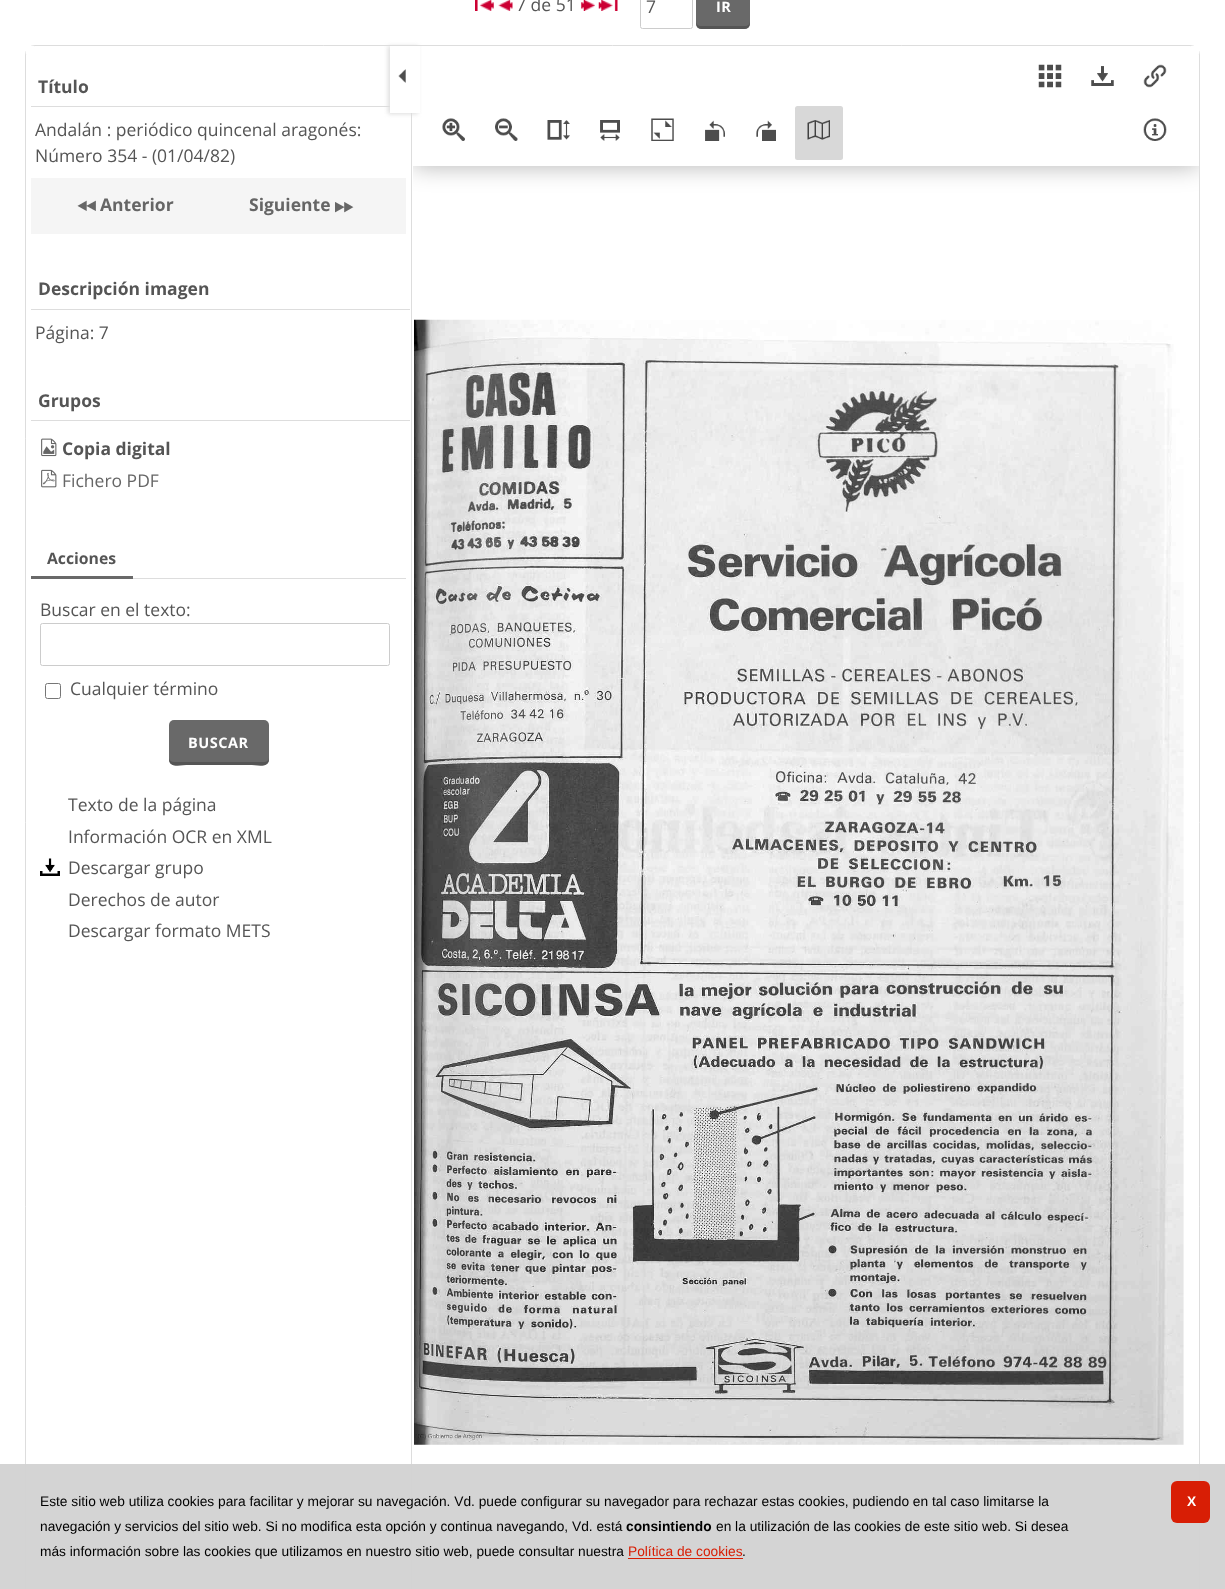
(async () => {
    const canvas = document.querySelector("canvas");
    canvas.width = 1225;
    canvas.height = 1589;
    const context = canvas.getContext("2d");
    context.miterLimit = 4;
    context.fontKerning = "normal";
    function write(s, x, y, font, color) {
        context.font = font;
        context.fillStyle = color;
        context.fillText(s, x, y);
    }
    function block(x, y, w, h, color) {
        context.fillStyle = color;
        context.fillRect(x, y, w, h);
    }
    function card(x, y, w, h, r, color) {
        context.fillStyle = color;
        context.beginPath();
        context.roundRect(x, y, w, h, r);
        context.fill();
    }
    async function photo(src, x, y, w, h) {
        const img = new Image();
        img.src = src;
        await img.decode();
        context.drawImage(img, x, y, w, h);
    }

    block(0, 0, 1225, 1589, "rgb(255, 255, 255)");
    await photo("media/1.png", 475, 0, 19, 11);
    await photo("media/2.png", 498, 0, 15, 11);
    write("7 de 51", 516, 11, "17.5px Open Sans", "rgb(85, 85, 85)");
    await photo("media/3.png", 581, 0, 14, 11);
    await photo("media/4.png", 598, 0, 20, 11);
    context.beginPath();
    context.roundRect(640.5, -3.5, 52, 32, 2);
    context.strokeStyle = "rgb(204, 204, 204)";
    context.stroke();
    write("7", 646, 13, "17.5px Open Sans", "rgb(85, 85, 85)");
    card(696, -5, 54, 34, 5, "rgb(105, 105, 105)");
    context.fillStyle = "rgb(85, 85, 85)";
    context.beginPath();
    context.moveTo(696, 21);
    context.bezierCurveTo(696, 30, 700, 29, 708, 29);
    context.lineTo(738, 29);
    context.bezierCurveTo(746, 29, 750, 30, 750, 21);
    context.bezierCurveTo(750, 24, 748, 26, 745, 26);
    context.lineTo(701, 26);
    context.bezierCurveTo(698, 26, 696, 24, 696, 21);
    context.closePath();
    context.fill();
    context.letterSpacing = "0.5px";
    write("IR", 716, 12, "bold 14.5px Open Sans", "rgb(255, 255, 255)");
    context.beginPath();
    context.roundRect(25.5, 45.5, 1174, 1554, 9.5);
    context.strokeStyle = "rgb(221, 221, 221)";
    context.stroke();
    block(26, 46, 8, 8, "rgb(255, 255, 255)");
    block(411, 113, 1, 1476, "rgb(221, 221, 221)");
    block(31, 106, 359, 1, "rgb(221, 221, 221)");
    context.letterSpacing = "0px";
    write("Título", 38, 93, "bold 17.5px Open Sans", "rgb(85, 85, 85)");
    write("Andalán : periódico quincenal aragonés:", 35, 136, "17.5px Open Sans", "rgb(85, 85, 85)");
    write("Número 354 - (01/04/82)", 35, 162, "17.5px Open Sans", "rgb(85, 85, 85)");
    block(31, 178, 375, 56, "rgb(245, 245, 245)");
    await photo("media/5.png", 77, 200, 19, 11);
    write("Anterior", 100, 211, "bold 17.5px Open Sans", "rgb(102, 102, 102)");
    write("Siguiente", 249, 211, "bold 17.5px Open Sans", "rgb(102, 102, 102)");
    await photo("media/6.png", 335, 202, 19, 11);
    block(31, 309, 379, 1, "rgb(221, 221, 221)");
    write("Descripción imagen", 38, 295, "bold 17.5px Open Sans", "rgb(85, 85, 85)");
    write("Página: 7", 35, 339, "17.5px Open Sans", "rgb(85, 85, 85)");
    block(31, 420, 379, 1, "rgb(221, 221, 221)");
    write("Grupos", 38, 407, "bold 17.5px Open Sans", "rgb(85, 85, 85)");
    await photo("media/7.png", 41, 438, 16, 19);
    write("Copia digital", 62, 455, "bold 17.5px Open Sans", "rgb(85, 85, 85)");
    await photo("media/8.png", 41, 469, 16, 19);
    write("Fichero PDF", 62, 487, "17.5px Open Sans", "rgb(102, 102, 102)");
    block(133, 578, 273, 1, "rgb(221, 221, 221)");
    block(31, 576, 102, 3, "rgb(105, 105, 105)");
    write("Acciones", 47, 564, "bold 15.75px Open Sans", "rgb(85, 85, 85)");
    write("Buscar en el texto:", 40, 616, "17.5px Open Sans", "rgb(85, 85, 85)");
    context.beginPath();
    context.roundRect(40.5, 623.5, 349, 42, 2);
    context.strokeStyle = "rgb(204, 204, 204)";
    context.stroke();
    context.beginPath();
    context.roundRect(45.5, 683.5, 15, 15, 2);
    context.strokeStyle = "rgb(118, 118, 118)";
    context.stroke();
    write("Cualquier término", 70, 695, "17.5px Open Sans", "rgb(85, 85, 85)");
    card(169, 720, 100, 45, 5, "rgb(105, 105, 105)");
    context.fillStyle = "rgb(85, 85, 85)";
    context.beginPath();
    context.moveTo(169, 758);
    context.bezierCurveTo(169, 769, 180, 765, 189, 765);
    context.lineTo(249, 765);
    context.bezierCurveTo(258, 765, 269, 769, 269, 758);
    context.bezierCurveTo(269, 760, 267, 762, 264, 762);
    context.lineTo(174, 762);
    context.bezierCurveTo(171, 762, 169, 760, 169, 758);
    context.closePath();
    context.fill();
    context.letterSpacing = "0.5px";
    write("BUSCAR", 188, 748, "bold 14.5px Open Sans", "rgb(255, 255, 255)");
    context.letterSpacing = "0px";
    write("Texto de la página", 68, 811, "17.5px Open Sans", "rgb(85, 85, 85)");
    write("Información OCR en XML", 68, 843, "17.5px Open Sans", "rgb(85, 85, 85)");
    await photo("media/9.png", 40, 858, 20, 18);
    write("Descargar grupo", 68, 874, "17.5px Open Sans", "rgb(85, 85, 85)");
    write("Derechos de autor", 68, 906, "17.5px Open Sans", "rgb(85, 85, 85)");
    write("Descargar formato METS", 68, 937, "17.5px Open Sans", "rgb(85, 85, 85)");
    context.fillStyle = "rgb(221, 221, 221)";
    context.filter = "blur(2px)";
    context.beginPath();
    context.rect(388, 46, 30, 68);
    context.fill();
    context.filter = "none";
    block(390, 46, 30, 67, "rgb(255, 255, 255)");
    await photo("media/10.png", 398, 69, 8, 14);
    block(1191, 46, 8, 8, "rgb(255, 255, 255)");
    context.save();
    context.beginPath();
    context.rect(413, 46, 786, 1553);
    context.clip();
    context.beginPath();
    context.moveTo(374, 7);
    context.lineTo(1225, 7);
    context.lineTo(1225, 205);
    context.lineTo(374, 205);
    context.closePath();
    context.moveTo(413, 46);
    context.lineTo(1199, 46);
    context.lineTo(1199, 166);
    context.lineTo(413, 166);
    context.closePath();
    context.clip("evenodd");
    context.fillStyle = "rgba(0, 0, 0, 0.3)";
    context.filter = "blur(12.5px)";
    context.beginPath();
    context.rect(413, 46, 786, 120);
    context.fill();
    context.filter = "none";
    context.restore();
    await photo("media/11.png", 442, 118, 23, 23);
    await photo("media/12.png", 495, 118, 23, 23);
    await photo("media/13.png", 547, 120, 23, 20);
    await photo("media/14.png", 600, 120, 20, 21);
    await photo("media/15.png", 651, 118, 23, 23);
    await photo("media/16.png", 705, 120, 20, 21);
    await photo("media/17.png", 756, 120, 20, 21);
    card(795, 106, 48, 54, 2.5, "rgb(216, 216, 216)");
    await photo("media/18.png", 807, 120, 23, 20);
    await photo("media/19.png", 1038, 64, 24, 24);
    await photo("media/20.png", 1091, 66, 23, 20);
    await photo("media/21.png", 1143, 64, 24, 24);
    await photo("media/22.png", 1143, 118, 24, 23);
    await photo("media/23.png", 414, 319, 770, 1126);
    block(0, 1464, 1225, 125, "rgba(210, 210, 210, 0.95)");
    write("Este sitio web utiliza cookies para facilitar y mejorar su navegación. Vd. puede configurar su navegador para rechazar estas cookies, pudiendo en tal caso limitarse la", 40, 1506, "13.75px Liberation Sans", "rgb(0, 0, 0)");
    write("navegación y servicios del sitio web. Si no modifica esta opción y continua navegando, Vd. está", 40, 1531, "13.75px Liberation Sans", "rgb(0, 0, 0)");
    write("consintiendo", 626, 1531, "bold 13.75px Liberation Sans", "rgb(0, 0, 0)");
    write("en la utilización de las cookies de este sitio web. Si desea", 716, 1531, "13.75px Liberation Sans", "rgb(0, 0, 0)");
    write("más información sobre las cookies que utilizamos en nuestro sitio web, puede consultar nuestra", 40, 1556, "13.75px Liberation Sans", "rgb(0, 0, 0)");
    write("Política de cookies", 628, 1556, "13.75px Liberation Sans", "rgb(216, 30, 5)");
    write(".", 742, 1556, "13.75px Liberation Sans", "rgb(0, 0, 0)");
    block(628, 1558, 115, 1, "rgb(216, 30, 5)");
    card(1171, 1481, 39, 42, 6, "rgb(216, 30, 5)");
    context.letterSpacing = "-1px";
    write("X", 1187, 1506, "bold 13.75px Liberation Sans", "rgb(255, 255, 255)");
})();
